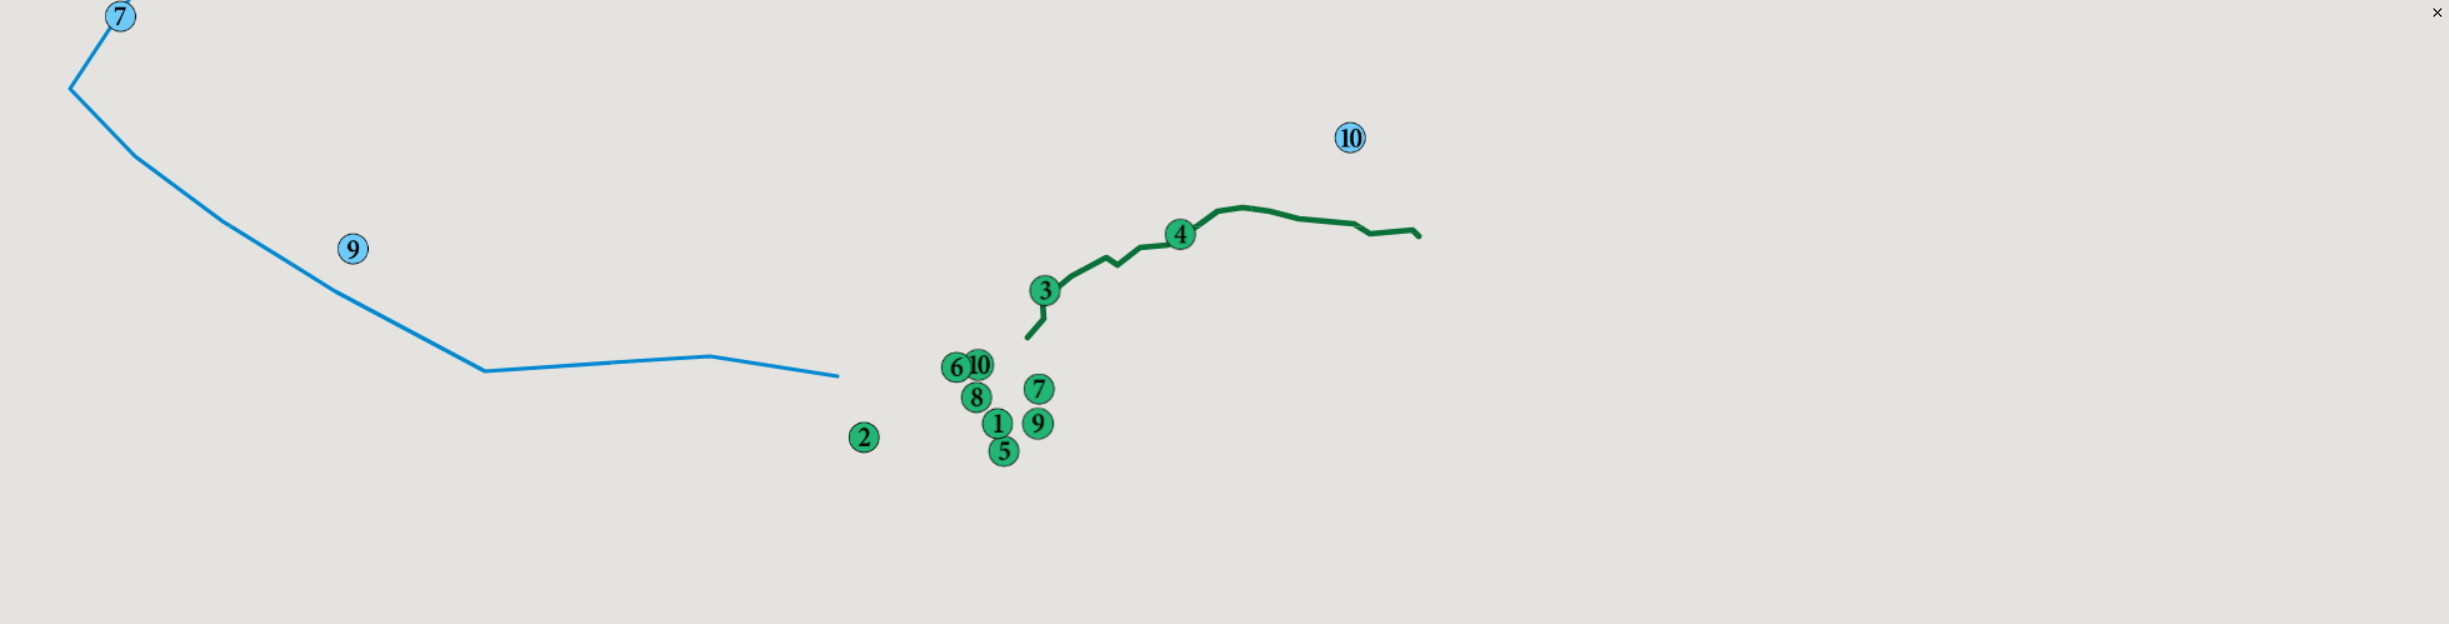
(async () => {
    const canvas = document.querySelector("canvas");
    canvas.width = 2449;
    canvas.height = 624;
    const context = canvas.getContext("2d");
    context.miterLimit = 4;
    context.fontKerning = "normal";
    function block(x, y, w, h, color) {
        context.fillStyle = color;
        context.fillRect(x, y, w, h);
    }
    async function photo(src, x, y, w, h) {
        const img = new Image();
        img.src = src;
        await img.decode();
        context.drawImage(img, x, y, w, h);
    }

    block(0, 0, 2449, 624, "rgb(229, 227, 223)");
    await photo("media/8.png", 611, 353, 230, 26);
    await photo("media/7.png", 291, 261, 321, 113);
    await photo("media/4.png", 226, 226, 66, 41);
    await photo("media/1.png", 67, 0, 167, 227);
    await photo("media/5.png", 1023, 226, 180, 116);
    await photo("media/2.png", 1191, 203, 61, 24);
    await photo("media/6.png", 1350, 226, 73, 15);
    await photo("media/3.png", 1251, 205, 113, 22);
    await photo("media/9.png", 104, 0, 33, 33);
    await photo("media/10.png", 1333, 121, 34, 33);
    await photo("media/11.png", 337, 232, 32, 34);
    await photo("media/12.png", 1164, 218, 33, 33);
    await photo("media/13.png", 1028, 274, 34, 34);
    await photo("media/15.png", 964, 348, 32, 34);
    await photo("media/16.png", 959, 380, 34, 35);
    await photo("media/14.png", 940, 351, 33, 33);
    await photo("media/17.png", 1022, 373, 34, 33);
    await photo("media/18.png", 847, 421, 34, 33);
    await photo("media/21.png", 987, 435, 34, 33);
    await photo("media/19.png", 980, 407, 34, 34);
    await photo("media/20.png", 1021, 407, 34, 34);
    await photo("media/22.png", 2432, 8, 10, 10);
})();
